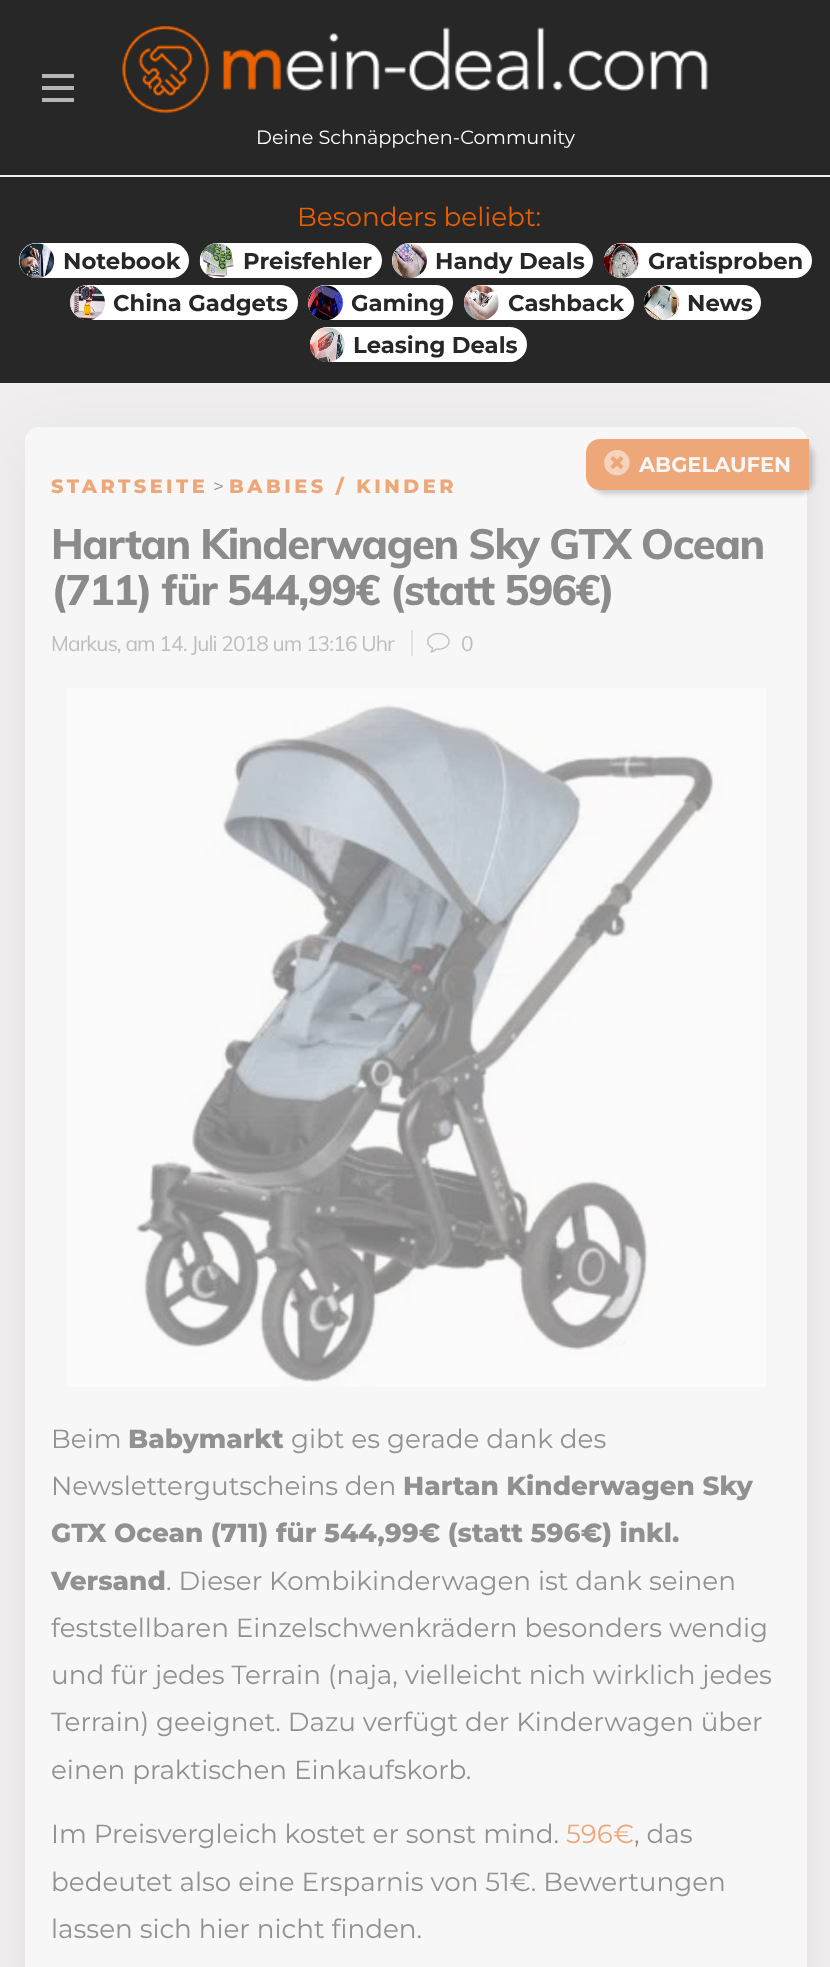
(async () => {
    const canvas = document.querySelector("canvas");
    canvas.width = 830;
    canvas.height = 1967;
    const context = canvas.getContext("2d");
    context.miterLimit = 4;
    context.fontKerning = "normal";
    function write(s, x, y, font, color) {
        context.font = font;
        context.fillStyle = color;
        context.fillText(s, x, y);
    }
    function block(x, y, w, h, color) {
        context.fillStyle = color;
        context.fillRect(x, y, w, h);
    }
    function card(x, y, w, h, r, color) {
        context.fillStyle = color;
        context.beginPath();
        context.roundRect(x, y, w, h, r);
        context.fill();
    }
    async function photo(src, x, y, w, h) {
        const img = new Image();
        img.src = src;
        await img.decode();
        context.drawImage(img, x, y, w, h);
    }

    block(0, 0, 830, 1967, "rgb(39, 39, 39)");
    block(0, 175, 830, 2, "rgb(237, 237, 237)");
    block(42, 74, 32, 4, "rgb(181, 181, 181)");
    block(42, 86, 32, 4, "rgb(181, 181, 181)");
    block(42, 98, 32, 4, "rgb(181, 181, 181)");
    await photo("media/1.png", 122, 26, 586, 87);
    write("Deine Schnäppchen-Community", 256, 144, "19.25px Montserrat", "rgb(255, 255, 255)");
    write("Besonders beliebt:", 297, 226, "26.25px Montserrat", "rgb(233, 95, 0)");
    card(19, 243, 170, 35, 17.5, "rgb(255, 255, 255)");
    await photo("media/2.png", 19, 243, 36, 35);
    write("Notebook", 63, 269, "bold 22.75px Montserrat", "rgb(39, 39, 39)");
    card(200, 243, 182, 35, 17.5, "rgb(255, 255, 255)");
    await photo("media/3.png", 199, 243, 35, 35);
    write("Preisfehler", 243, 269, "bold 22.75px Montserrat", "rgb(39, 39, 39)");
    card(392, 243, 201, 35, 17.5, "rgb(255, 255, 255)");
    await photo("media/4.png", 392, 243, 35, 35);
    write("Handy Deals", 435, 269, "bold 22.75px Montserrat", "rgb(39, 39, 39)");
    card(604, 243, 208, 35, 17.5, "rgb(255, 255, 255)");
    await photo("media/5.png", 604, 243, 35, 35);
    write("Gratisproben", 648, 269, "bold 22.75px Montserrat", "rgb(39, 39, 39)");
    card(70, 285, 228, 35, 17.5, "rgb(255, 255, 255)");
    await photo("media/6.png", 70, 285, 35, 35);
    write("China Gadgets", 113, 311, "bold 22.75px Montserrat", "rgb(39, 39, 39)");
    card(308, 285, 145, 35, 17.5, "rgb(255, 255, 255)");
    await photo("media/7.png", 308, 285, 35, 35);
    write("Gaming", 351, 311, "bold 22.75px Montserrat", "rgb(39, 39, 39)");
    card(464, 285, 170, 35, 17.5, "rgb(255, 255, 255)");
    await photo("media/8.png", 464, 285, 35, 35);
    write("Cashback", 508, 311, "bold 22.75px Montserrat", "rgb(39, 39, 39)");
    card(644, 285, 117, 35, 17.5, "rgb(255, 255, 255)");
    await photo("media/9.png", 644, 285, 35, 35);
    write("News", 687, 311, "bold 22.75px Montserrat", "rgb(39, 39, 39)");
    block(0, 383, 830, 1584, "rgb(240, 238, 238)");
    context.fillStyle = "rgba(120, 119, 119, 0.1)";
    context.filter = "blur(26px)";
    context.beginPath();
    context.roundRect(25, 438, 782, 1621, 14);
    context.fill();
    context.filter = "none";
    card(310, 327, 217, 35, 17.5, "rgb(255, 255, 255)");
    await photo("media/10.png", 310, 327, 35, 35);
    write("Leasing Deals", 353, 353, "bold 22.75px Montserrat", "rgb(39, 39, 39)");
    card(25, 427, 782, 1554, 14, "rgb(248, 247, 247)");
    context.fillStyle = "rgba(120, 119, 119, 0.35)";
    context.filter = "blur(2.5px)";
    context.beginPath();
    context.roundRect(592, 443, 222, 51, 14);
    context.fill();
    context.filter = "none";
    context.fillStyle = "rgb(237, 167, 120)";
    context.beginPath();
    context.roundRect(586, 439, 223, 51, [14, 0, 0, 14]);
    context.fill();
    await photo("media/11.png", 604, 450, 26, 26);
    write("ABGELAUFEN", 639, 472, "bold 21px Montserrat", "rgb(248, 247, 247)");
    context.letterSpacing = "-1.4px";
    write("Hartan Kinderwagen Sky GTX Ocean", 51, 559, "800 42px Muli", "rgb(140, 139, 139)");
    write("(711) für 544,99€ (statt 596€)", 51, 605, "800 42px Muli", "rgb(140, 139, 139)");
    context.letterSpacing = "-0.9px";
    write("Markus, am 14. Juli 2018 um 13:16 Uhr", 51, 651, "21px Muli", "rgb(191, 190, 190)");
    block(411, 630, 2, 26, "rgb(227, 226, 226)");
    await photo("media/12.png", 427, 632, 23, 21);
    write("0", 461, 651, "21px Muli", "rgb(191, 190, 190)");
    context.letterSpacing = "3.5px";
    write("STARTSEITE", 51, 493, "800 19.25px Montserrat", "rgb(237, 167, 120)");
    context.letterSpacing = "0px";
    write(">", 213, 493, "19.25px Montserrat", "rgb(146, 145, 145)");
    context.letterSpacing = "3.5px";
    write("BABIES / KINDER", 229, 493, "800 19.25px Montserrat", "rgb(237, 167, 120)");
    await photo("media/13.png", 67, 688, 699, 699);
    context.letterSpacing = "0px";
    write("Beim", 51, 1448, "26.25px Montserrat", "rgb(146, 145, 145)");
    write("Babymarkt", 128, 1448, "800 26.25px Montserrat", "rgb(146, 145, 145)");
    write("gibt es gerade dank des", 291, 1448, "26.25px Montserrat", "rgb(146, 145, 145)");
    write("Newslettergutscheins den", 51, 1495, "26.25px Montserrat", "rgb(146, 145, 145)");
    write("Hartan Kinderwagen Sky", 403, 1495, "800 26.25px Montserrat", "rgb(146, 145, 145)");
    write("GTX Ocean (711) für 544,99€ (statt 596€) inkl.", 51, 1542, "800 26.25px Montserrat", "rgb(146, 145, 145)");
    write("Versand", 51, 1590, "800 26.25px Montserrat", "rgb(146, 145, 145)");
    write(". Dieser Kombikinderwagen ist dank seinen", 166, 1590, "26.25px Montserrat", "rgb(146, 145, 145)");
    write("feststellbaren Einzelschwenkrädern besonders wendig", 51, 1637, "26.25px Montserrat", "rgb(146, 145, 145)");
    write("und für jedes Terrain (naja, vielleicht nich wirklich jedes", 51, 1684, "26.25px Montserrat", "rgb(146, 145, 145)");
    write("Terrain) geeignet. Dazu verfügt der Kinderwagen über", 51, 1731, "26.25px Montserrat", "rgb(146, 145, 145)");
    write("einen praktischen Einkaufskorb.", 51, 1779, "26.25px Montserrat", "rgb(146, 145, 145)");
    write("Im Preisvergleich kostet er sonst mind.", 51, 1843, "26.25px Montserrat", "rgb(146, 145, 145)");
    write("596€", 566, 1843, "26.25px Montserrat", "rgb(237, 167, 120)");
    write(", das", 634, 1843, "26.25px Montserrat", "rgb(146, 145, 145)");
    write("bedeutet also eine Ersparnis von 51€. Bewertungen", 51, 1891, "26.25px Montserrat", "rgb(146, 145, 145)");
    write("lassen sich hier nicht finden.", 51, 1938, "26.25px Montserrat", "rgb(146, 145, 145)");
})();
